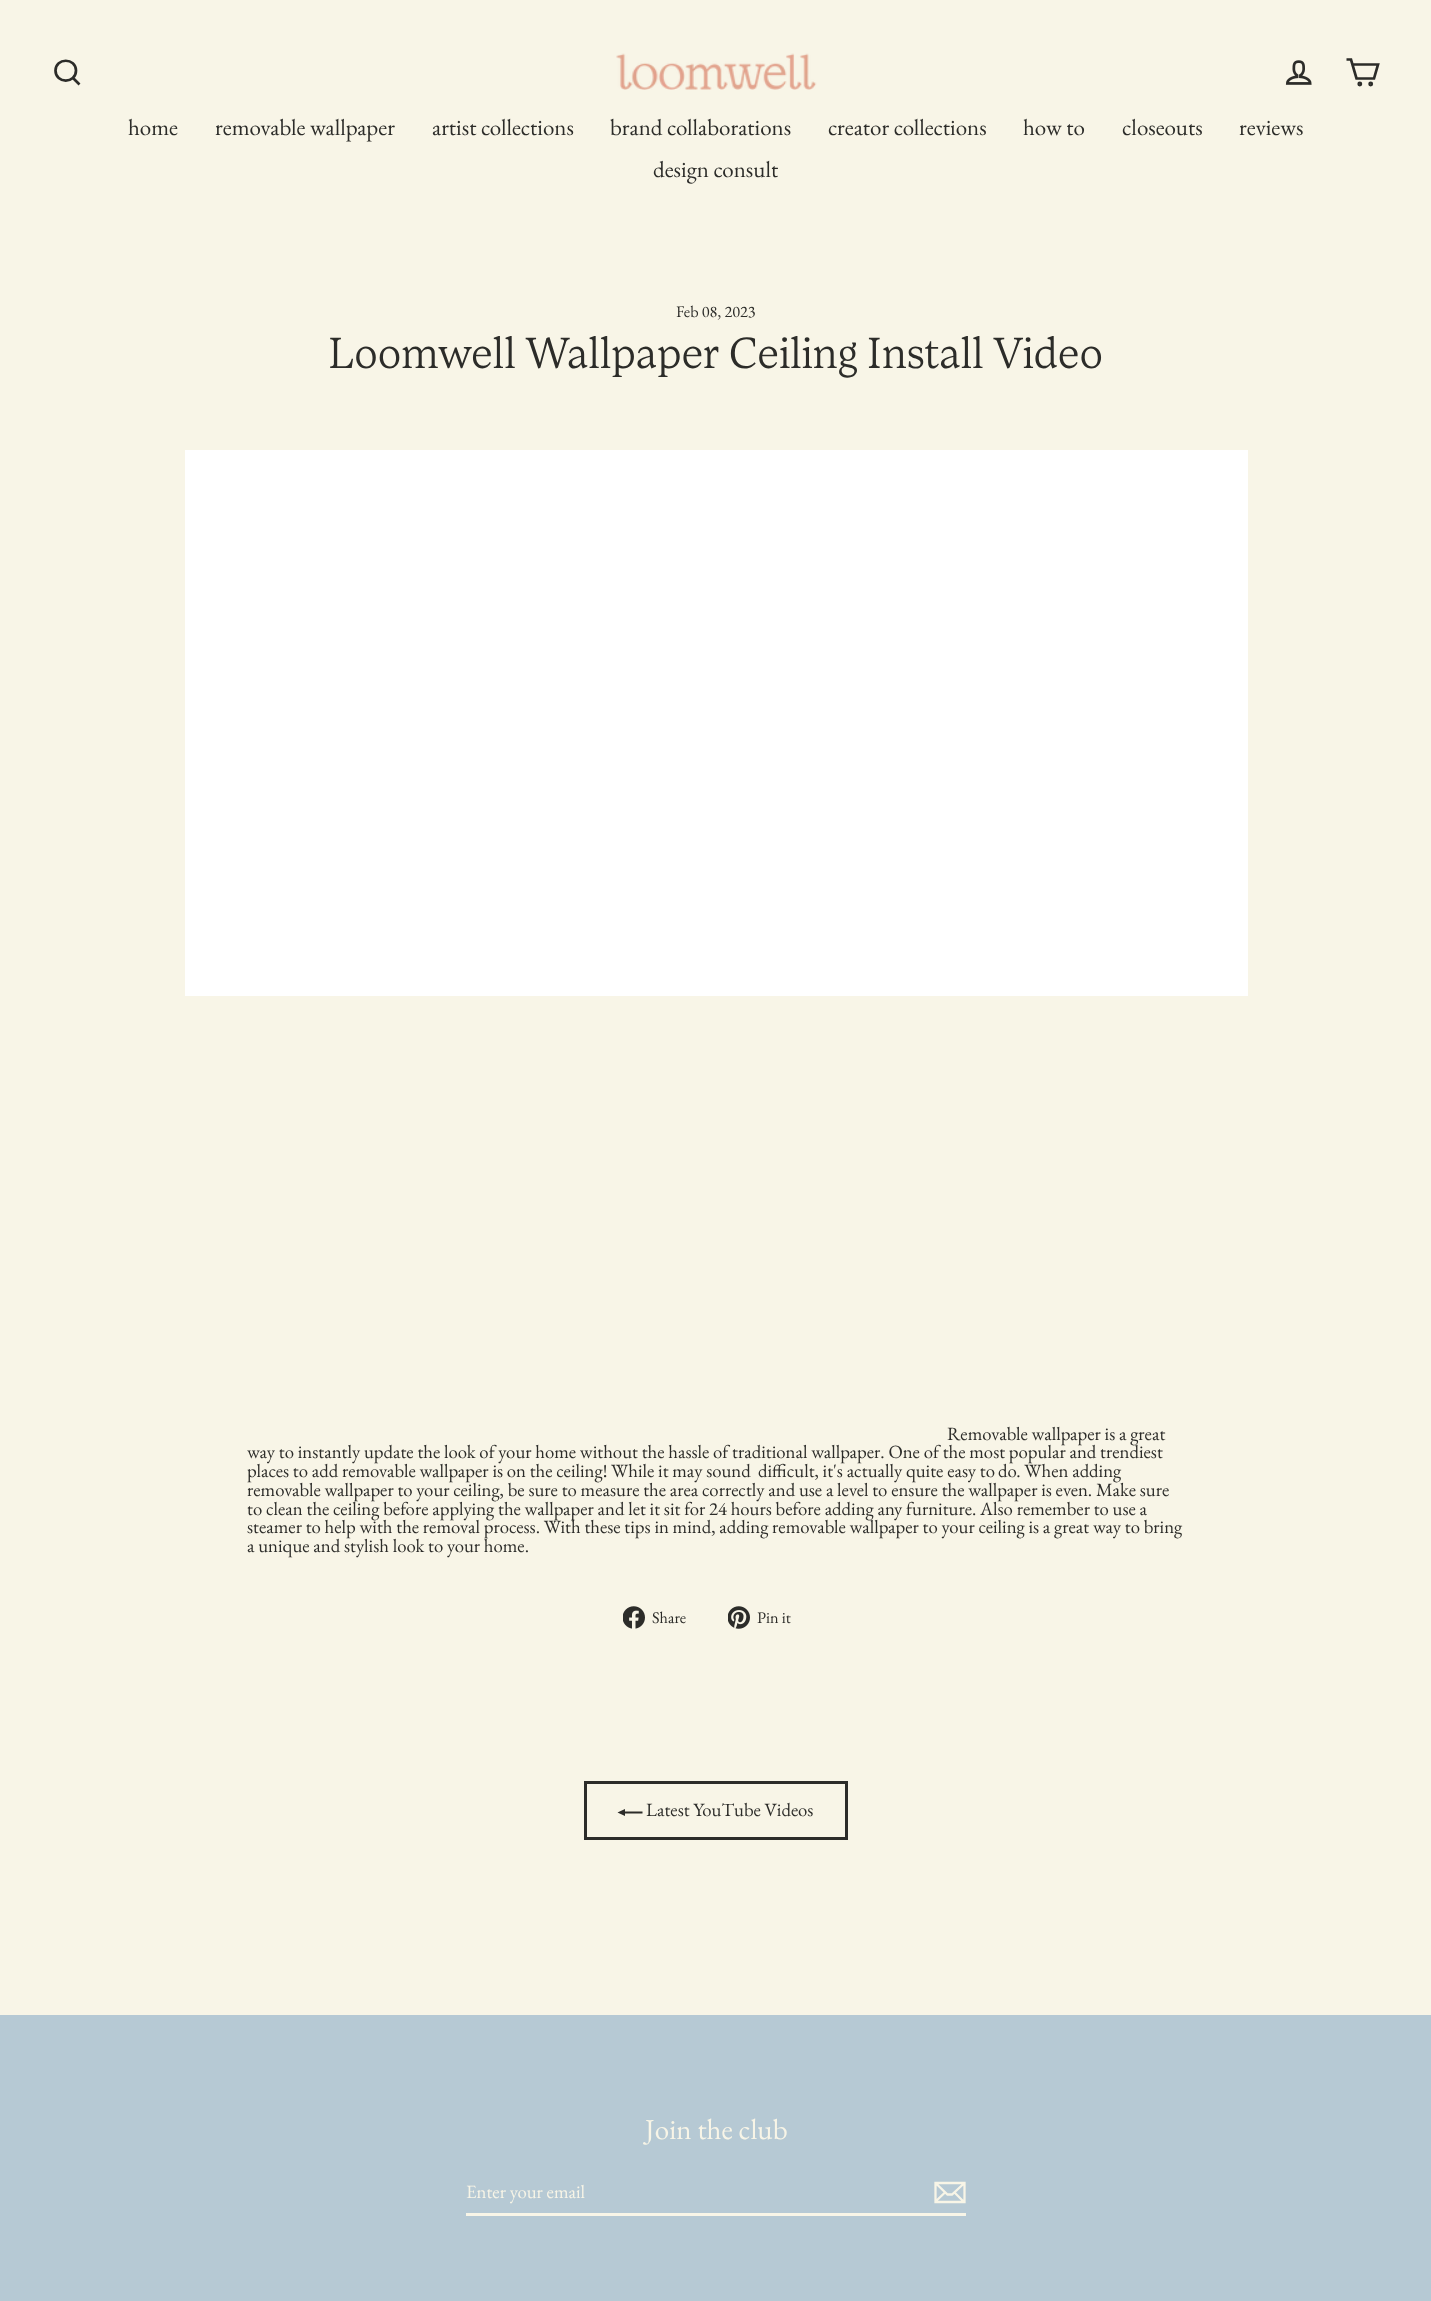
(async () => {
    const canvas = document.querySelector("canvas");
    canvas.width = 1431;
    canvas.height = 2301;
    const context = canvas.getContext("2d");
    context.miterLimit = 4;
    context.fontKerning = "normal";
    function write(s, x, y, font, color) {
        context.font = font;
        context.fillStyle = color;
        context.fillText(s, x, y);
    }
    function block(x, y, w, h, color) {
        context.fillStyle = color;
        context.fillRect(x, y, w, h);
    }
    async function photo(src, x, y, w, h) {
        const img = new Image();
        img.src = src;
        await img.decode();
        context.drawImage(img, x, y, w, h);
    }
    let gradient;

    block(0, 0, 1431, 2301, "rgb(248, 245, 231)");
    context.beginPath();
    context.moveTo(76, 70.5);
    context.bezierCurveTo(76, 84, 55.5, 84, 55.5, 70.5);
    context.bezierCurveTo(55.5, 57.5, 76, 57.5, 76, 70.5);
    context.closePath();
    context.moveTo(79.5, 84.5);
    context.lineTo(73, 78);
    context.strokeStyle = "rgb(44, 44, 41)";
    context.lineWidth = 2.7;
    context.stroke();
    await photo("media/1.png", 616, 53, 201, 37);
    await photo("media/2.png", 1285, 60, 27, 25);
    context.beginPath();
    context.moveTo(1352.5, 64.5);
    context.lineTo(1378, 64.5);
    context.lineTo(1374, 78.5);
    context.lineTo(1356.5, 78.5);
    context.lineTo(1351, 59.5);
    context.lineTo(1346.5, 59.5);
    context.stroke();
    context.beginPath();
    context.arc(1359.8, 84, 1.1, 0, Math.PI * 2);
    context.stroke();
    context.beginPath();
    context.arc(1370.7, 84, 1.1, 0, Math.PI * 2);
    context.stroke();
    write("home", 128, 135, "23px EB Garamond", "rgb(44, 44, 41)");
    write("removable wallpaper", 215, 135, "23px EB Garamond", "rgb(44, 44, 41)");
    write("artist collections", 432, 135, "23px EB Garamond", "rgb(44, 44, 41)");
    write("brand collaborations", 610, 135, "23px EB Garamond", "rgb(44, 44, 41)");
    write("creator collections", 828, 135, "23px EB Garamond", "rgb(44, 44, 41)");
    write("how to", 1023, 135, "23px EB Garamond", "rgb(44, 44, 41)");
    write("closeouts", 1122, 135, "23px EB Garamond", "rgb(44, 44, 41)");
    write("reviews", 1239, 135, "23px EB Garamond", "rgb(44, 44, 41)");
    write("design consult", 653, 177, "23px EB Garamond", "rgb(44, 44, 41)");
    write("Feb 08, 2023", 676, 317, "16.25px EB Garamond", "rgb(44, 44, 41)");
    write("Loomwell Wallpaper Ceiling Install Video", 328, 368, "300 43.75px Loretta", "rgb(44, 44, 41)");
    gradient = context.createLinearGradient(202, 351, 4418, 1095);
    gradient.addColorStop(0.4, "rgb(255, 255, 255)");
    gradient.addColorStop(0.63, "rgb(247, 247, 247)");
    gradient.addColorStop(0.79, "rgb(255, 255, 255)");
    context.fillStyle = gradient;
    context.fillRect(185, 450, 1063, 546);
    write("Removable wallpaper is a great", 947, 1440, "18.75px EB Garamond", "rgb(44, 44, 41)");
    write("way to instantly update the look of your home without the hassle of traditional wallpaper. One of the most popular and trendiest", 247, 1458, "18.75px EB Garamond", "rgb(44, 44, 41)");
    write("places to add removable wallpaper is on the ceiling! While it may sound", 247, 1477, "18.75px EB Garamond", "rgb(44, 44, 41)");
    write("difficult, it's actually quite easy to", 758, 1477, "18.75px EB Garamond", "rgb(44, 44, 41)");
    write("do. When adding", 998, 1477, "18.75px EB Garamond", "rgb(44, 44, 41)");
    write("removable wallpaper to your ceiling, be sure to measure the area correctly and use a level to ensure the wallpaper is even. Make sure", 247, 1496, "18.75px EB Garamond", "rgb(44, 44, 41)");
    write("to clean the ceiling before applying the wallpaper and let it sit for 24 hours before adding any furniture. Also remember to use a", 247, 1515, "18.75px EB Garamond", "rgb(44, 44, 41)");
    write("steamer to help with the removal process. With these tips in mind, adding removable wallpaper to your ceiling is a great way to bring", 247, 1533, "18.75px EB Garamond", "rgb(44, 44, 41)");
    write("a unique and stylish look to your home.", 247, 1552, "18.75px EB Garamond", "rgb(44, 44, 41)");
    await photo("media/3.png", 623, 1606, 22, 23);
    write("Share", 652, 1623, "16.25px EB Garamond", "rgb(44, 44, 41)");
    await photo("media/4.png", 728, 1606, 22, 23);
    write("Pin it", 757, 1623, "16.25px EB Garamond", "rgb(44, 44, 41)");
    context.lineWidth = 3;
    context.strokeRect(585.5, 1782.5, 261, 56);
    context.beginPath();
    context.moveTo(642.5, 1811.5);
    context.lineTo(642.5, 1813.5);
    context.lineTo(625, 1813.5);
    context.lineTo(625, 1816);
    context.lineTo(617.5, 1812.5);
    context.lineTo(625, 1809);
    context.lineTo(625, 1811.5);
    context.closePath();
    context.fill();
    write("Latest YouTube Videos", 646, 1816, "18.75px EB Garamond", "rgb(44, 44, 41)");
    block(0, 2015, 1431, 286, "rgb(182, 201, 212)");
    write("Join the club", 645, 2139, "29px EB Garamond", "rgb(248, 245, 231)");
    block(466, 2213, 500, 3, "rgb(248, 245, 231)");
    write("Enter your email", 466, 2198, "18.75px EB Garamond", "rgb(248, 245, 231)");
    context.beginPath();
    context.moveTo(964.5, 2202);
    context.lineTo(935.5, 2202);
    context.lineTo(935.5, 2183);
    context.lineTo(964.5, 2183);
    context.closePath();
    context.moveTo(935.5, 2183);
    context.lineTo(947.5, 2194.5);
    context.lineTo(952, 2194.5);
    context.lineTo(964.5, 2183);
    context.moveTo(945, 2192.5);
    context.lineTo(935.5, 2201.5);
    context.moveTo(964, 2202);
    context.lineTo(954.5, 2192.5);
    context.strokeStyle = "rgb(248, 245, 231)";
    context.lineWidth = 2.3;
    context.stroke();
})();
